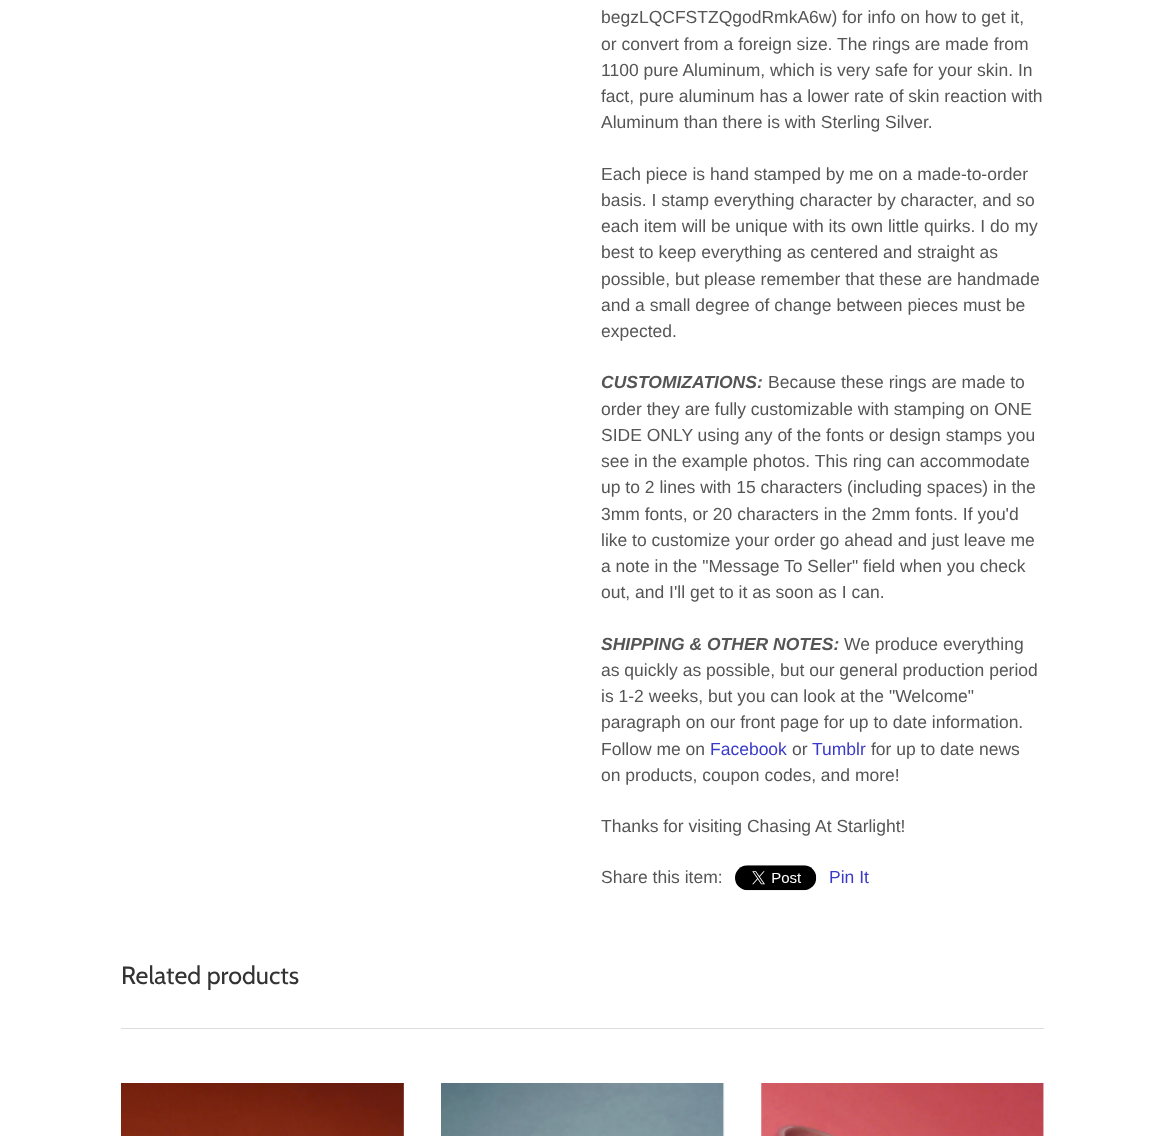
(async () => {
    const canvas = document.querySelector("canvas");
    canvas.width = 1164;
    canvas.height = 1136;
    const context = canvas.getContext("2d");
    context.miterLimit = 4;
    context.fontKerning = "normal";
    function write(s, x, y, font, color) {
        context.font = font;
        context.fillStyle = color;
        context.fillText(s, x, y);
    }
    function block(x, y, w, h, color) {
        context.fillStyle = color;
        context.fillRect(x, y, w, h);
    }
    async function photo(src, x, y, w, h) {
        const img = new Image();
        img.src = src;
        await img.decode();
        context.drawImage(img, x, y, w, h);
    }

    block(0, 0, 1164, 1136, "rgb(255, 255, 255)");
    write("begzLQCFSTZQgodRmkA6w) for info on how to get it,", 601, 23, "17.5px Liberation Sans", "rgb(85, 85, 85)");
    write("or convert from a foreign size. The rings are made from", 601, 50, "17.5px Liberation Sans", "rgb(85, 85, 85)");
    write("1100 pure Aluminum, which is very safe for your skin. In", 601, 76, "17.5px Liberation Sans", "rgb(85, 85, 85)");
    write("fact, pure aluminum has a lower rate of skin reaction with", 601, 102, "17.5px Liberation Sans", "rgb(85, 85, 85)");
    write("Aluminum than there is with Sterling Silver.", 601, 128, "17.5px Liberation Sans", "rgb(85, 85, 85)");
    write("Each piece is hand stamped by me on a made-to-order", 601, 180, "17.5px Liberation Sans", "rgb(85, 85, 85)");
    write("basis. I stamp everything character by character, and so", 601, 206, "17.5px Liberation Sans", "rgb(85, 85, 85)");
    write("each item will be unique with its own little quirks. I do my", 601, 232, "17.5px Liberation Sans", "rgb(85, 85, 85)");
    write("best to keep everything as centered and straight as", 601, 258, "17.5px Liberation Sans", "rgb(85, 85, 85)");
    write("possible, but please remember that these are handmade", 601, 285, "17.5px Liberation Sans", "rgb(85, 85, 85)");
    write("and a small degree of change between pieces must be", 601, 311, "17.5px Liberation Sans", "rgb(85, 85, 85)");
    write("expected.", 601, 337, "17.5px Liberation Sans", "rgb(85, 85, 85)");
    write("CUSTOMIZATIONS:", 601, 388, "italic bold 17.5px Liberation Sans", "rgb(85, 85, 85)");
    write("Because these rings are made to", 768, 388, "17.5px Liberation Sans", "rgb(85, 85, 85)");
    write("order they are fully customizable with stamping on ONE", 601, 415, "17.5px Liberation Sans", "rgb(85, 85, 85)");
    write("SIDE ONLY using any of the fonts or design stamps you", 601, 441, "17.5px Liberation Sans", "rgb(85, 85, 85)");
    write("see in the example photos. This ring can accommodate", 601, 467, "17.5px Liberation Sans", "rgb(85, 85, 85)");
    write("up to 2 lines with 15 characters (including spaces) in the", 601, 493, "17.5px Liberation Sans", "rgb(85, 85, 85)");
    write("3mm fonts, or 20 characters in the 2mm fonts. If you'd", 601, 520, "17.5px Liberation Sans", "rgb(85, 85, 85)");
    write("like to customize your order go ahead and just leave me", 601, 546, "17.5px Liberation Sans", "rgb(85, 85, 85)");
    write("a note in the \"Message To Seller\" field when you check", 601, 572, "17.5px Liberation Sans", "rgb(85, 85, 85)");
    write("out, and I'll get to it as soon as I can.", 601, 598, "17.5px Liberation Sans", "rgb(85, 85, 85)");
    write("SHIPPING & OTHER NOTES:", 601, 650, "italic bold 17.5px Liberation Sans", "rgb(85, 85, 85)");
    write("We produce everything", 844, 650, "17.5px Liberation Sans", "rgb(85, 85, 85)");
    write("as quickly as possible, but our general production period", 601, 676, "17.5px Liberation Sans", "rgb(85, 85, 85)");
    write("is 1-2 weeks, but you can look at the \"Welcome\"", 601, 702, "17.5px Liberation Sans", "rgb(85, 85, 85)");
    write("paragraph on our front page for up to date information.", 601, 728, "17.5px Liberation Sans", "rgb(85, 85, 85)");
    write("Follow me on", 601, 755, "17.5px Liberation Sans", "rgb(85, 85, 85)");
    write("Facebook", 710, 755, "17.5px Liberation Sans", "rgb(58, 58, 201)");
    write("or", 792, 755, "17.5px Liberation Sans", "rgb(85, 85, 85)");
    write("Tumblr", 812, 755, "17.5px Liberation Sans", "rgb(58, 58, 201)");
    write("for up to date news", 871, 755, "17.5px Liberation Sans", "rgb(85, 85, 85)");
    write("on products, coupon codes, and more!", 601, 781, "17.5px Liberation Sans", "rgb(85, 85, 85)");
    write("Thanks for visiting Chasing At Starlight!", 601, 832, "17.5px Liberation Sans", "rgb(85, 85, 85)");
    write("Share this item:", 601, 883, "17.5px Liberation Sans", "rgb(85, 85, 85)");
    await photo("media/1.png", 735, 865, 82, 26);
    write("Pin It", 829, 883, "17.5px Liberation Sans", "rgb(58, 58, 201)");
    block(121, 1028, 923, 1, "rgb(221, 221, 221)");
    write("Related products", 121, 984, "25px Cabin", "rgb(51, 51, 51)");
    await photo("media/2.png", 121, 1083, 283, 53);
    await photo("media/3.png", 441, 1083, 284, 53);
    await photo("media/4.png", 761, 1083, 283, 53);
})();
